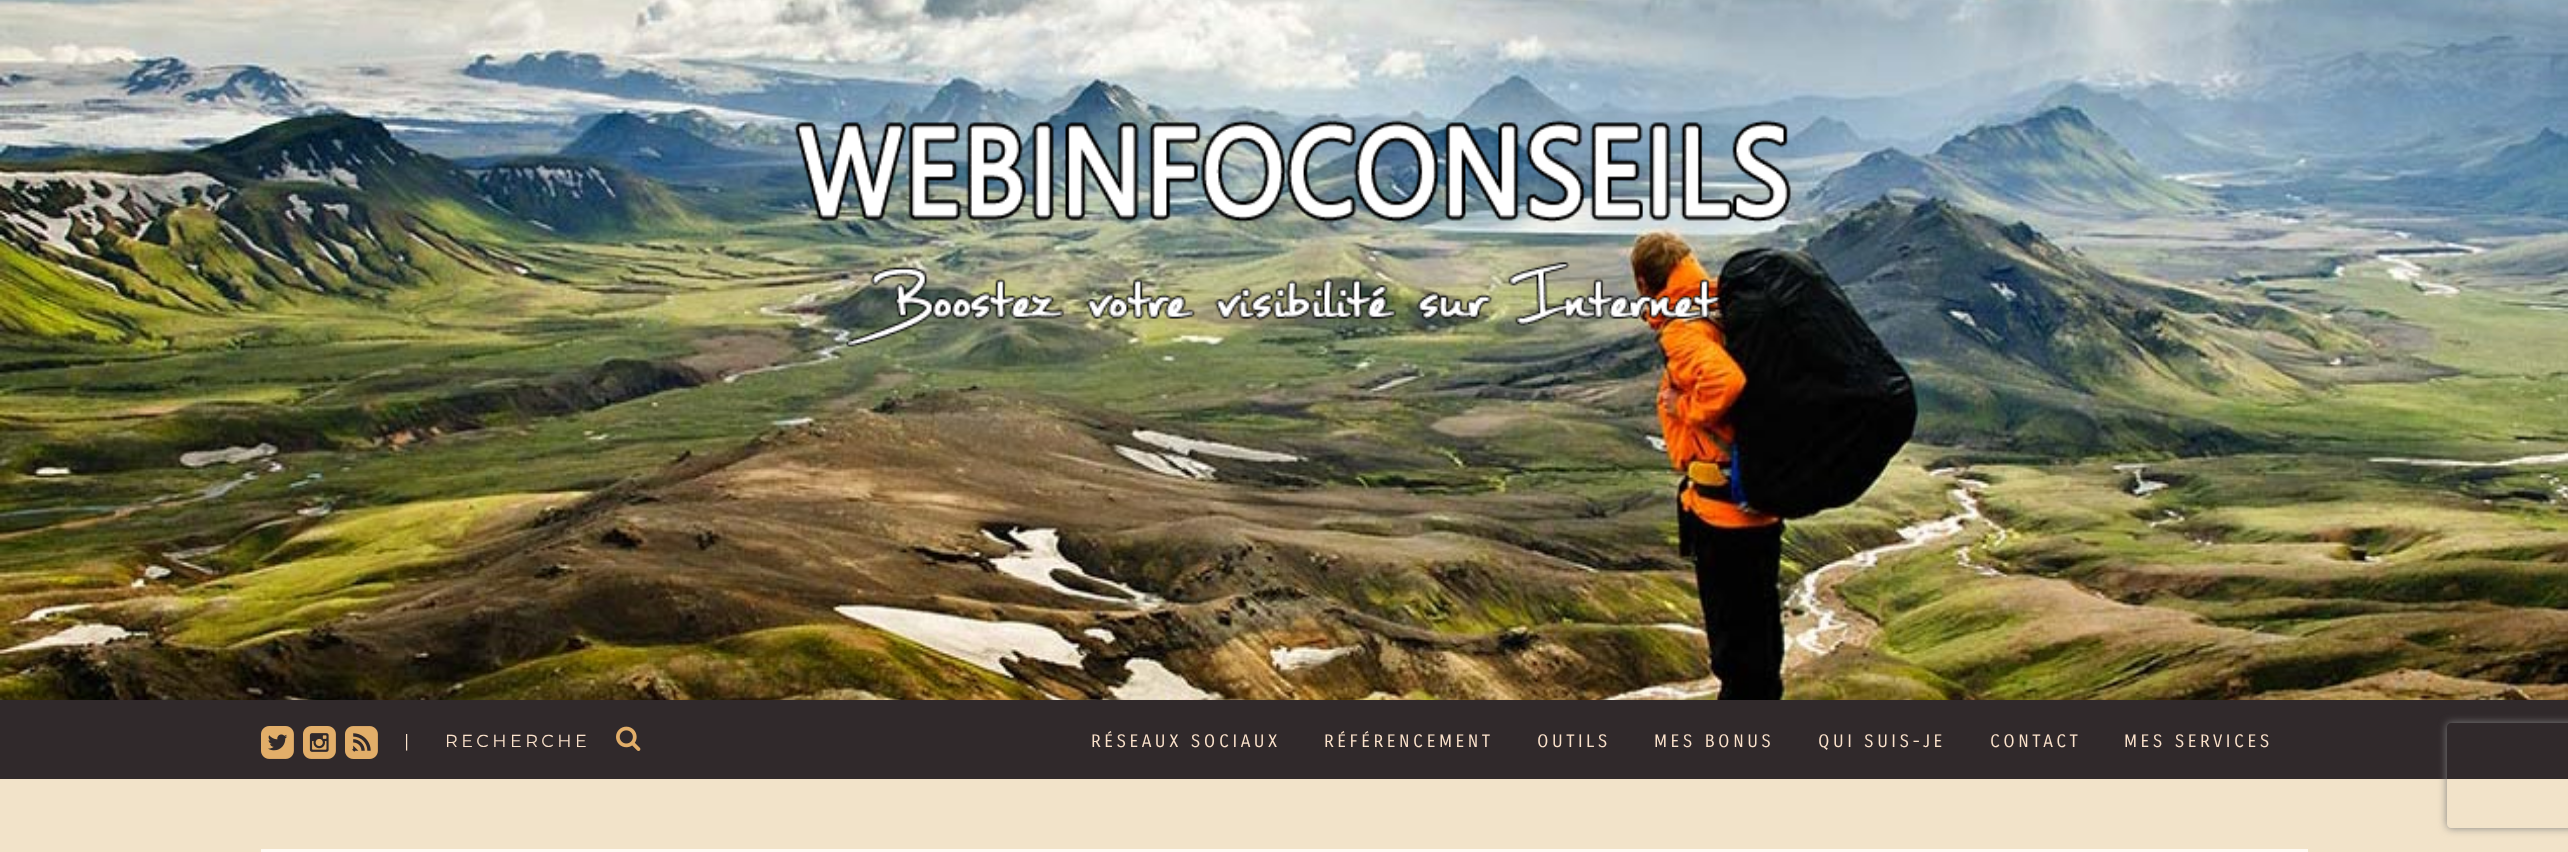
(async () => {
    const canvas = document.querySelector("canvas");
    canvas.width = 2568;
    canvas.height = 852;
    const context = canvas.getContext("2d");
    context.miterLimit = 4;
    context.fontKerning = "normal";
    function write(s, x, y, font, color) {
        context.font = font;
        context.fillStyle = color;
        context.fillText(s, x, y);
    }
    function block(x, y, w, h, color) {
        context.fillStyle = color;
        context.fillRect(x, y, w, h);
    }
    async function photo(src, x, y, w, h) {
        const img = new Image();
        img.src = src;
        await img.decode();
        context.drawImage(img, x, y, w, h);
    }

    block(0, 0, 2568, 852, "rgb(242, 227, 201)");
    await photo("media/1.png", 0, 0, 2568, 700);
    await photo("media/2.png", 794, 120, 997, 227);
    block(0, 700, 2568, 79, "rgb(48, 41, 43)");
    await photo("media/3.png", 261, 726, 33, 33);
    await photo("media/4.png", 303, 726, 33, 33);
    await photo("media/5.png", 345, 726, 33, 33);
    context.letterSpacing = "3.5px";
    write("|    RECHERCHE", 404, 747, "17.5px Montserrat", "rgb(251, 226, 203)");
    await photo("media/6.png", 616, 726, 25, 25);
    write("RÉSEAUX SOCIAUX", 1091, 747, "17.5px Carrois Gothic", "rgb(251, 226, 203)");
    write("RÉFÉRENCEMENT", 1324, 747, "17.5px Carrois Gothic", "rgb(251, 226, 203)");
    write("OUTILS", 1537, 747, "17.5px Carrois Gothic", "rgb(251, 226, 203)");
    write("MES BONUS", 1654, 747, "17.5px Carrois Gothic", "rgb(251, 226, 203)");
    write("QUI SUIS-JE", 1818, 747, "17.5px Carrois Gothic", "rgb(251, 226, 203)");
    write("CONTACT", 1990, 747, "17.5px Carrois Gothic", "rgb(251, 226, 203)");
    write("MES SERVICES", 2124, 747, "17.5px Carrois Gothic", "rgb(251, 226, 203)");
    context.save();
    context.beginPath();
    context.moveTo(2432, 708);
    context.lineTo(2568, 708);
    context.lineTo(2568, 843);
    context.lineTo(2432, 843);
    context.closePath();
    context.moveTo(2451, 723);
    context.lineTo(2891, 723);
    context.bezierCurveTo(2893, 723, 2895, 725, 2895, 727);
    context.lineTo(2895, 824);
    context.bezierCurveTo(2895, 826, 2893, 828, 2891, 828);
    context.lineTo(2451, 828);
    context.bezierCurveTo(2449, 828, 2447, 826, 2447, 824);
    context.lineTo(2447, 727);
    context.bezierCurveTo(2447, 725, 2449, 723, 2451, 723);
    context.closePath();
    context.clip("evenodd");
    context.fillStyle = "rgb(128, 128, 128)";
    context.filter = "blur(4.5px)";
    context.beginPath();
    context.roundRect(2447, 723, 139, 105, 4);
    context.fill();
    context.filter = "none";
    context.restore();
    block(261, 849, 2047, 3, "rgb(255, 250, 243)");
})();
